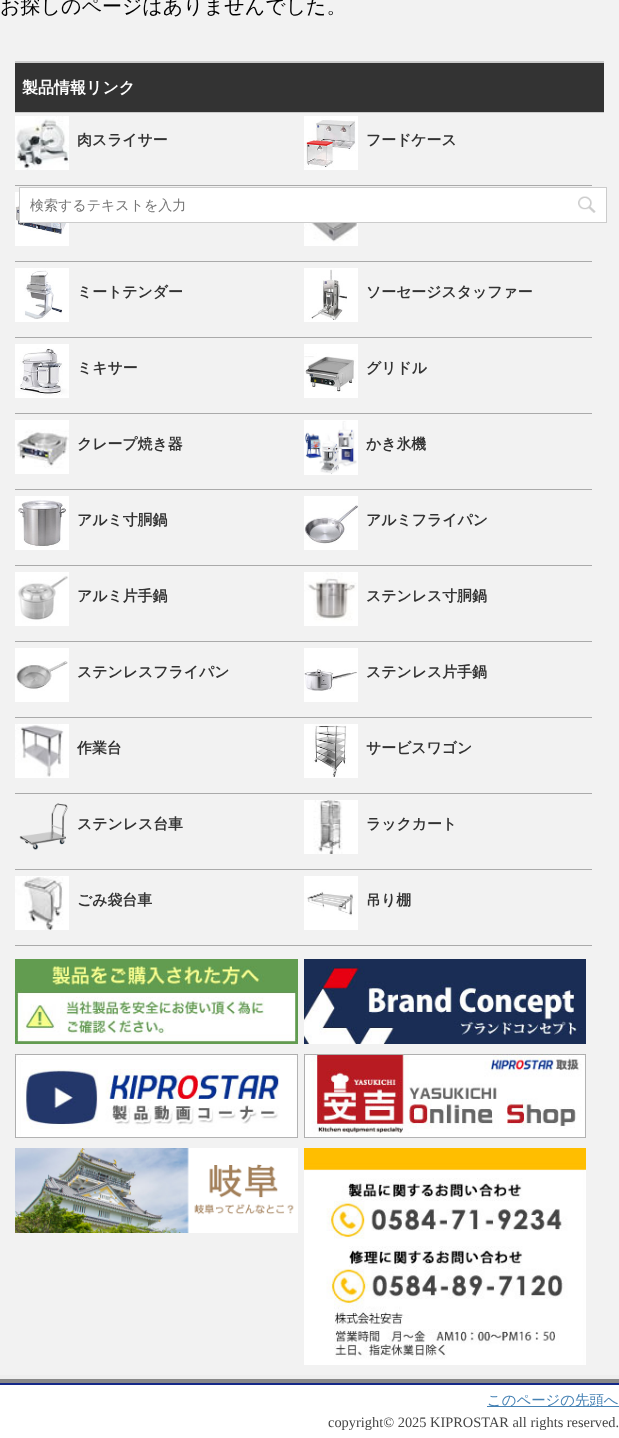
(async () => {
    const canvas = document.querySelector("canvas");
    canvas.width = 619;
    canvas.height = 1438;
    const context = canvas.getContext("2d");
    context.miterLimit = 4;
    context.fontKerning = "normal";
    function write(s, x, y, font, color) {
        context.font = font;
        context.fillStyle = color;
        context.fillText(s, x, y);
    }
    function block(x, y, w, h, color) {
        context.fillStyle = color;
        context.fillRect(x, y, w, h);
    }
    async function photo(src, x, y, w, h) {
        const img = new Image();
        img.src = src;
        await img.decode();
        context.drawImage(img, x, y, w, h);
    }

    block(0, 0, 619, 1438, "rgb(242, 242, 242)");
    write("お探しのページはありませんでした。", 0, 13, "500 20px WenQuanYi Zen Hei", "rgb(0, 0, 0)");
    block(15, 63, 589, 49, "rgb(51, 51, 51)");
    block(15, 61, 589, 2, "rgb(204, 204, 204)");
    block(15, 112, 589, 1, "rgb(204, 204, 204)");
    write("製品情報リンク", 22, 93, "bold 16px WenQuanYi Zen Hei", "rgb(255, 255, 255)");
    block(15, 185, 577, 1, "rgb(170, 170, 170)");
    await photo("media/1.png", 15, 116, 54, 54);
    write("肉スライサー", 77, 145, "bold 14.9px WenQuanYi Zen Hei", "rgb(51, 51, 51)");
    await photo("media/2.png", 304, 116, 54, 54);
    write("フードケース", 366, 145, "bold 14.9px WenQuanYi Zen Hei", "rgb(51, 51, 51)");
    block(15, 261, 577, 1, "rgb(170, 170, 170)");
    await photo("media/3.png", 15, 192, 54, 54);
    await photo("media/4.png", 304, 223, 54, 23);
    block(15, 337, 577, 1, "rgb(170, 170, 170)");
    await photo("media/5.png", 15, 268, 54, 54);
    write("ミートテンダー", 77, 297, "bold 14.9px WenQuanYi Zen Hei", "rgb(51, 51, 51)");
    await photo("media/6.png", 304, 268, 54, 54);
    write("ソーセージスタッファー", 366, 297, "bold 14.9px WenQuanYi Zen Hei", "rgb(51, 51, 51)");
    block(15, 413, 577, 1, "rgb(170, 170, 170)");
    await photo("media/7.png", 15, 344, 54, 54);
    write("ミキサー", 77, 373, "bold 14.9px WenQuanYi Zen Hei", "rgb(51, 51, 51)");
    await photo("media/8.png", 304, 344, 54, 54);
    write("グリドル", 366, 373, "bold 14.9px WenQuanYi Zen Hei", "rgb(51, 51, 51)");
    block(15, 489, 577, 1, "rgb(170, 170, 170)");
    await photo("media/9.png", 15, 420, 54, 54);
    write("クレープ焼き器", 77, 449, "bold 14.9px WenQuanYi Zen Hei", "rgb(51, 51, 51)");
    await photo("media/10.png", 304, 420, 54, 55);
    write("かき氷機", 366, 449, "bold 14.9px WenQuanYi Zen Hei", "rgb(51, 51, 51)");
    block(15, 565, 577, 1, "rgb(170, 170, 170)");
    await photo("media/11.png", 15, 496, 54, 54);
    write("アルミ寸胴鍋", 77, 525, "bold 14.9px WenQuanYi Zen Hei", "rgb(51, 51, 51)");
    await photo("media/12.png", 304, 496, 54, 54);
    write("アルミフライパン", 366, 525, "bold 14.9px WenQuanYi Zen Hei", "rgb(51, 51, 51)");
    block(15, 641, 577, 1, "rgb(170, 170, 170)");
    await photo("media/13.png", 15, 572, 54, 54);
    write("アルミ片手鍋", 77, 601, "bold 14.9px WenQuanYi Zen Hei", "rgb(51, 51, 51)");
    await photo("media/14.png", 304, 572, 54, 54);
    write("ステンレス寸胴鍋", 366, 601, "bold 14.9px WenQuanYi Zen Hei", "rgb(51, 51, 51)");
    block(15, 717, 577, 1, "rgb(170, 170, 170)");
    await photo("media/15.png", 15, 648, 54, 54);
    write("ステンレスフライパン", 77, 677, "bold 14.9px WenQuanYi Zen Hei", "rgb(51, 51, 51)");
    await photo("media/16.png", 304, 648, 54, 54);
    write("ステンレス片手鍋", 366, 677, "bold 14.9px WenQuanYi Zen Hei", "rgb(51, 51, 51)");
    block(15, 793, 577, 1, "rgb(170, 170, 170)");
    await photo("media/17.png", 15, 724, 54, 54);
    write("作業台", 77, 753, "bold 14.9px WenQuanYi Zen Hei", "rgb(51, 51, 51)");
    await photo("media/18.png", 304, 724, 54, 54);
    write("サービスワゴン", 366, 753, "bold 14.9px WenQuanYi Zen Hei", "rgb(51, 51, 51)");
    block(15, 869, 577, 1, "rgb(170, 170, 170)");
    await photo("media/19.png", 19, 803, 49, 47);
    write("ステンレス台車", 77, 829, "bold 14.9px WenQuanYi Zen Hei", "rgb(51, 51, 51)");
    await photo("media/20.png", 304, 800, 54, 54);
    write("ラックカート", 366, 829, "bold 14.9px WenQuanYi Zen Hei", "rgb(51, 51, 51)");
    block(15, 945, 577, 1, "rgb(170, 170, 170)");
    await photo("media/21.png", 15, 876, 54, 54);
    write("ごみ袋台車", 77, 905, "bold 14.9px WenQuanYi Zen Hei", "rgb(51, 51, 51)");
    await photo("media/22.png", 304, 876, 54, 54);
    write("吊り棚", 366, 905, "bold 14.9px WenQuanYi Zen Hei", "rgb(51, 51, 51)");
    await photo("media/23.png", 15, 959, 283, 85);
    await photo("media/24.png", 304, 959, 282, 85);
    await photo("media/25.png", 15, 1054, 283, 84);
    await photo("media/26.png", 304, 1054, 282, 84);
    await photo("media/27.png", 15, 1148, 283, 85);
    await photo("media/28.png", 304, 1148, 282, 217);
    context.strokeStyle = "rgb(204, 204, 204)";
    context.strokeRect(19.5, 187.5, 587, 35);
    block(20, 188, 586, 34, "rgb(255, 255, 255)");
    write("検索するテキストを入力", 30, 210, "500 14px WenQuanYi Zen Hei", "rgb(117, 117, 117)");
    await photo("media/29.png", 578, 196, 18, 17);
    block(0, 1379, 619, 4, "rgb(136, 136, 136)");
    block(0, 1375, 619, 4, "rgb(238, 238, 238)");
    block(0, 1385, 619, 53, "rgb(255, 255, 255)");
    block(0, 1383, 619, 2, "rgb(21, 41, 136)");
    block(487, 1406, 132, 1, "rgb(70, 130, 180)");
    write("このページの先頭へ", 487, 1405, "500 14.4px WenQuanYi Zen Hei", "rgb(70, 130, 180)");
    write("copyright© 2025 KIPROSTAR all rights reserved.", 328, 1427, "14.4px Liberation Serif", "rgb(69, 69, 69)");
})();
